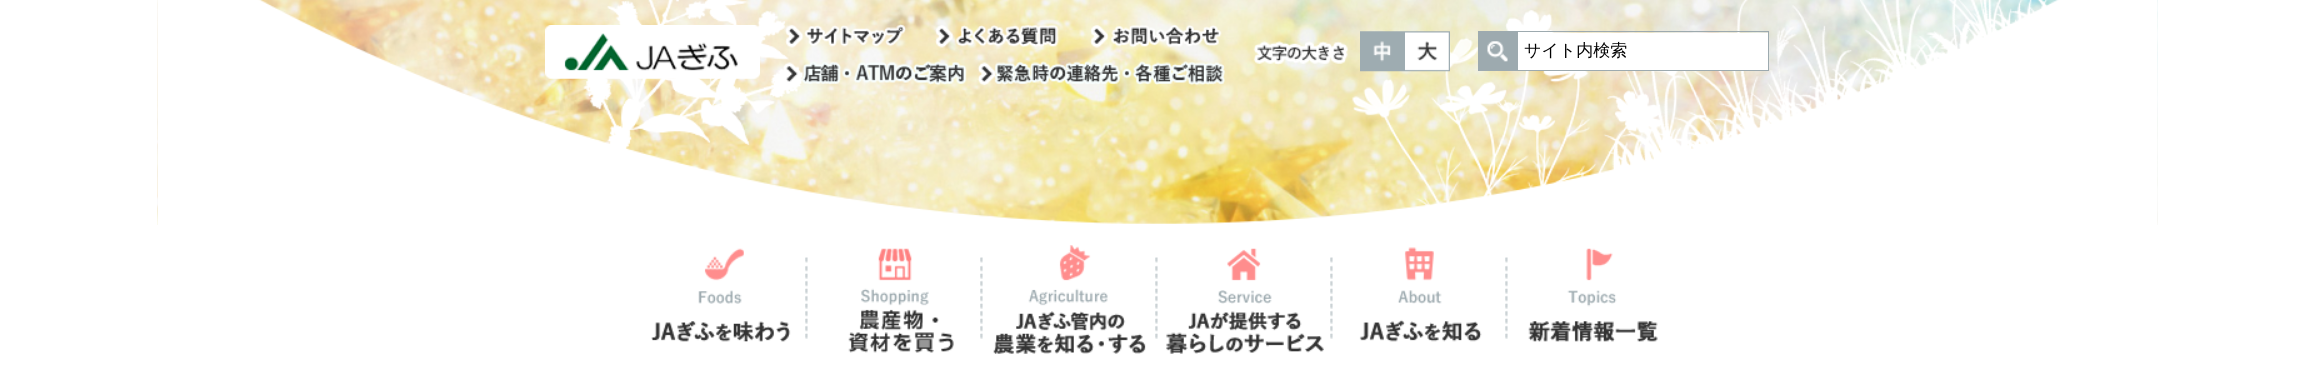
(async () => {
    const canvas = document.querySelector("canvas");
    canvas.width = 2315;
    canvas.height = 381;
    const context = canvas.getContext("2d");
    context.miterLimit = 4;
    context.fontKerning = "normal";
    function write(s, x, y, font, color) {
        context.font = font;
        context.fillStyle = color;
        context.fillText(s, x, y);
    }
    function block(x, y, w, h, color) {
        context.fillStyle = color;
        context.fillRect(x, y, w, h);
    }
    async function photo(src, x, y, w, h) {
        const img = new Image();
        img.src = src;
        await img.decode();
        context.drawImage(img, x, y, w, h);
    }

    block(0, 0, 2315, 381, "rgb(255, 255, 255)");
    await photo("media/1.png", 157, 0, 2001, 225);
    await photo("media/2.png", 157, 0, 2001, 225);
    await photo("media/3.png", 545, 25, 215, 54);
    await photo("media/4.png", 785, 24, 122, 24);
    await photo("media/5.png", 935, 25, 124, 23);
    await photo("media/6.png", 1090, 25, 132, 23);
    await photo("media/7.png", 783, 61, 184, 24);
    await photo("media/8.png", 977, 61, 248, 25);
    await photo("media/9.png", 1253, 41, 95, 24);
    await photo("media/10.png", 1360, 31, 45, 41);
    await photo("media/11.png", 1405, 31, 45, 41);
    block(1478, 31, 40, 40, "rgb(157, 170, 175)");
    await photo("media/12.png", 1487, 41, 21, 21);
    block(1518, 33, 250, 37, "rgb(255, 255, 255)");
    block(1518, 31, 251, 1, "rgb(157, 170, 175)");
    block(1768, 31, 1, 40, "rgb(157, 170, 175)");
    block(1518, 70, 251, 1, "rgb(157, 170, 175)");
    write("サイト内検索", 1524, 56, "500 17px WenQuanYi Zen Hei", "rgb(0, 0, 0)");
    await photo("media/13.png", 805, 257, 3, 82);
    await photo("media/14.png", 704, 248, 40, 33);
    await photo("media/15.png", 651, 290, 140, 52);
    await photo("media/13.png", 980, 257, 3, 82);
    await photo("media/16.png", 878, 248, 34, 33);
    await photo("media/17.png", 848, 288, 106, 65);
    await photo("media/13.png", 1155, 257, 3, 82);
    await photo("media/18.png", 1059, 245, 32, 36);
    await photo("media/19.png", 993, 288, 153, 66);
    await photo("media/13.png", 1330, 257, 3, 82);
    await photo("media/20.png", 1227, 248, 34, 33);
    await photo("media/21.png", 1166, 290, 158, 64);
    await photo("media/13.png", 1505, 257, 3, 82);
    await photo("media/22.png", 1404, 247, 30, 34);
    await photo("media/23.png", 1359, 290, 123, 52);
    await photo("media/24.png", 1586, 248, 27, 33);
    await photo("media/25.png", 1528, 290, 130, 52);
})();
